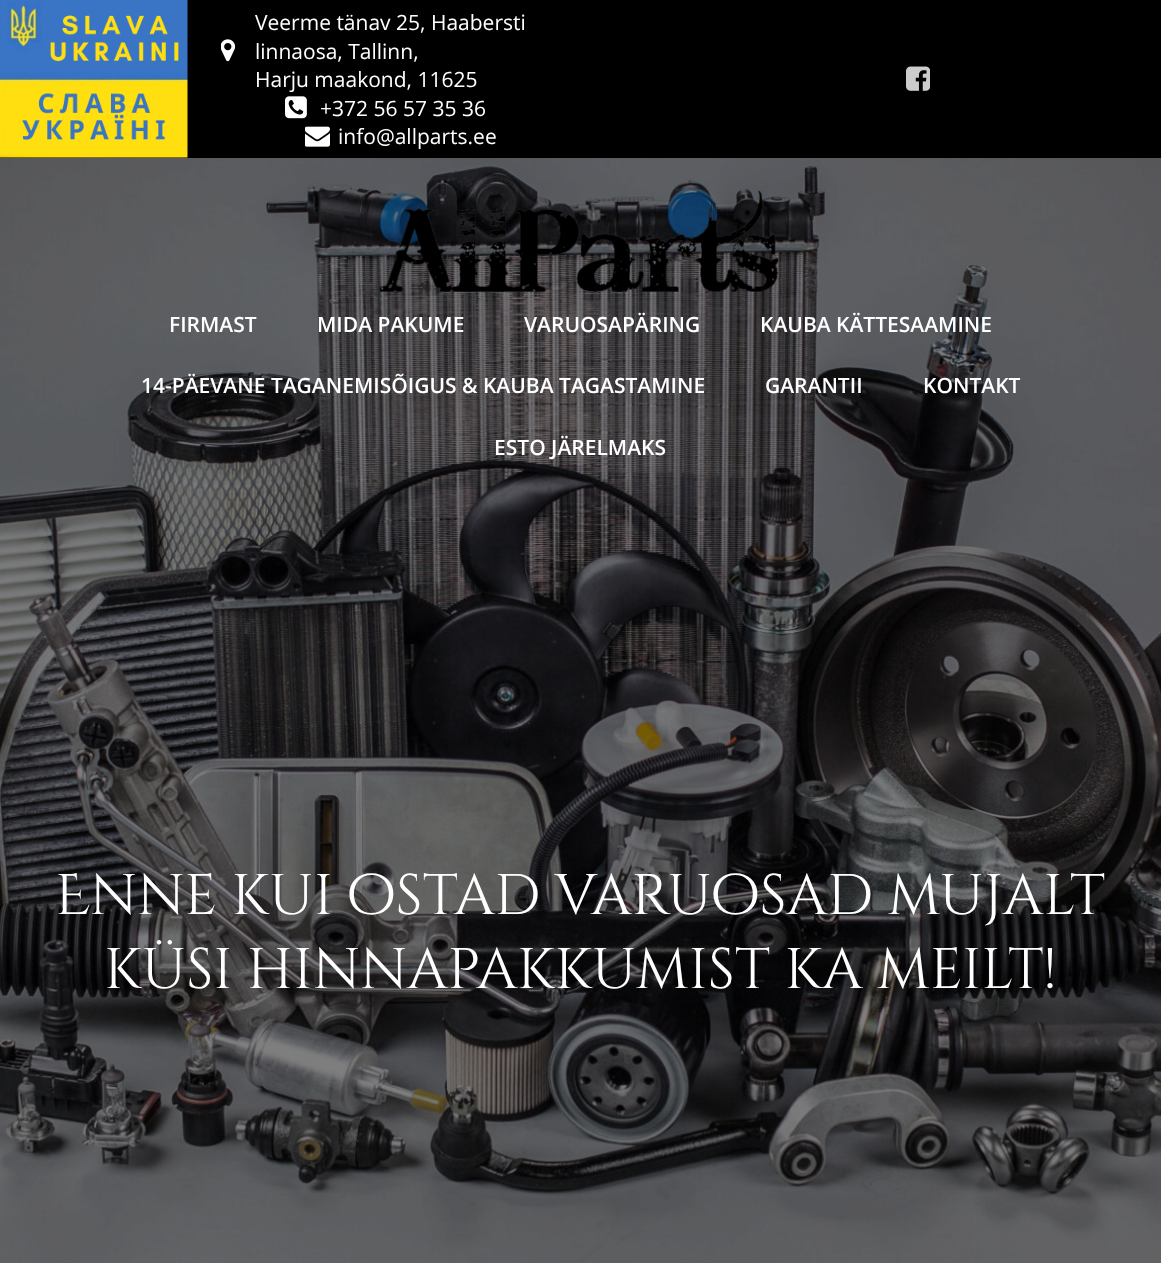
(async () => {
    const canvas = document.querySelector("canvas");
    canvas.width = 1161;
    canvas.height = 1263;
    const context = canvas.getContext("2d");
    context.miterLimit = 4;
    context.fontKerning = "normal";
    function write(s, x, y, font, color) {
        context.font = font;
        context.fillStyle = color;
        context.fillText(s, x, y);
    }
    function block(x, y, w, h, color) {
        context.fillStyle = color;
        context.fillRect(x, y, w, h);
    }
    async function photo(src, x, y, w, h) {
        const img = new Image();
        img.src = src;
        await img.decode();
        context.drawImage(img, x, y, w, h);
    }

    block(0, 0, 1161, 1263, "rgb(255, 255, 255)");
    block(0, 0, 1161, 158, "rgb(0, 0, 0)");
    await photo("media/1.png", 0, 0, 188, 158);
    await photo("media/2.png", 221, 39, 15, 23);
    write("Veerme tänav 25, Haabersti", 255, 30, "21px Open Sans", "rgb(255, 255, 255)");
    write("linnaosa, Tallinn,", 255, 59, "21px Open Sans", "rgb(255, 255, 255)");
    write("Harju maakond, 11625", 255, 87, "21px Open Sans", "rgb(255, 255, 255)");
    await photo("media/3.png", 285, 96, 22, 23);
    write("+372 56 57 35 36", 320, 116, "21px Open Sans", "rgb(255, 255, 255)");
    await photo("media/4.png", 305, 126, 25, 21);
    write("info@allparts.ee", 338, 144, "21px Open Sans", "rgb(255, 255, 255)");
    await photo("media/5.png", 906, 66, 24, 25);
    await photo("media/7.png", 0, 158, 1161, 1105);
    await photo("media/6.png", 379, 190, 403, 103);
    write("FIRMAST", 169, 332, "600 21px Open Sans", "rgb(255, 255, 255)");
    write("MIDA PAKUME", 317, 332, "600 21px Open Sans", "rgb(255, 255, 255)");
    write("VARUOSAPÄRING", 524, 332, "600 21px Open Sans", "rgb(255, 255, 255)");
    write("KAUBA KÄTTESAAMINE", 760, 332, "600 21px Open Sans", "rgb(255, 255, 255)");
    write("14-PÄEVANE TAGANEMISÕIGUS & KAUBA TAGASTAMINE", 141, 393, "600 21px Open Sans", "rgb(255, 255, 255)");
    write("GARANTII", 765, 393, "600 21px Open Sans", "rgb(255, 255, 255)");
    write("KONTAKT", 923, 393, "600 21px Open Sans", "rgb(255, 255, 255)");
    write("ESTO JÄRELMAKS", 494, 455, "600 21px Open Sans", "rgb(255, 255, 255)");
    write("Enne kui ostad varuosad mujalt", 55, 914, "57px Cinzel Decorative", "rgb(255, 255, 255)");
    write("küsi hinnapakkumist ka meilt!", 104, 988, "57px Cinzel Decorative", "rgb(255, 255, 255)");
})();
